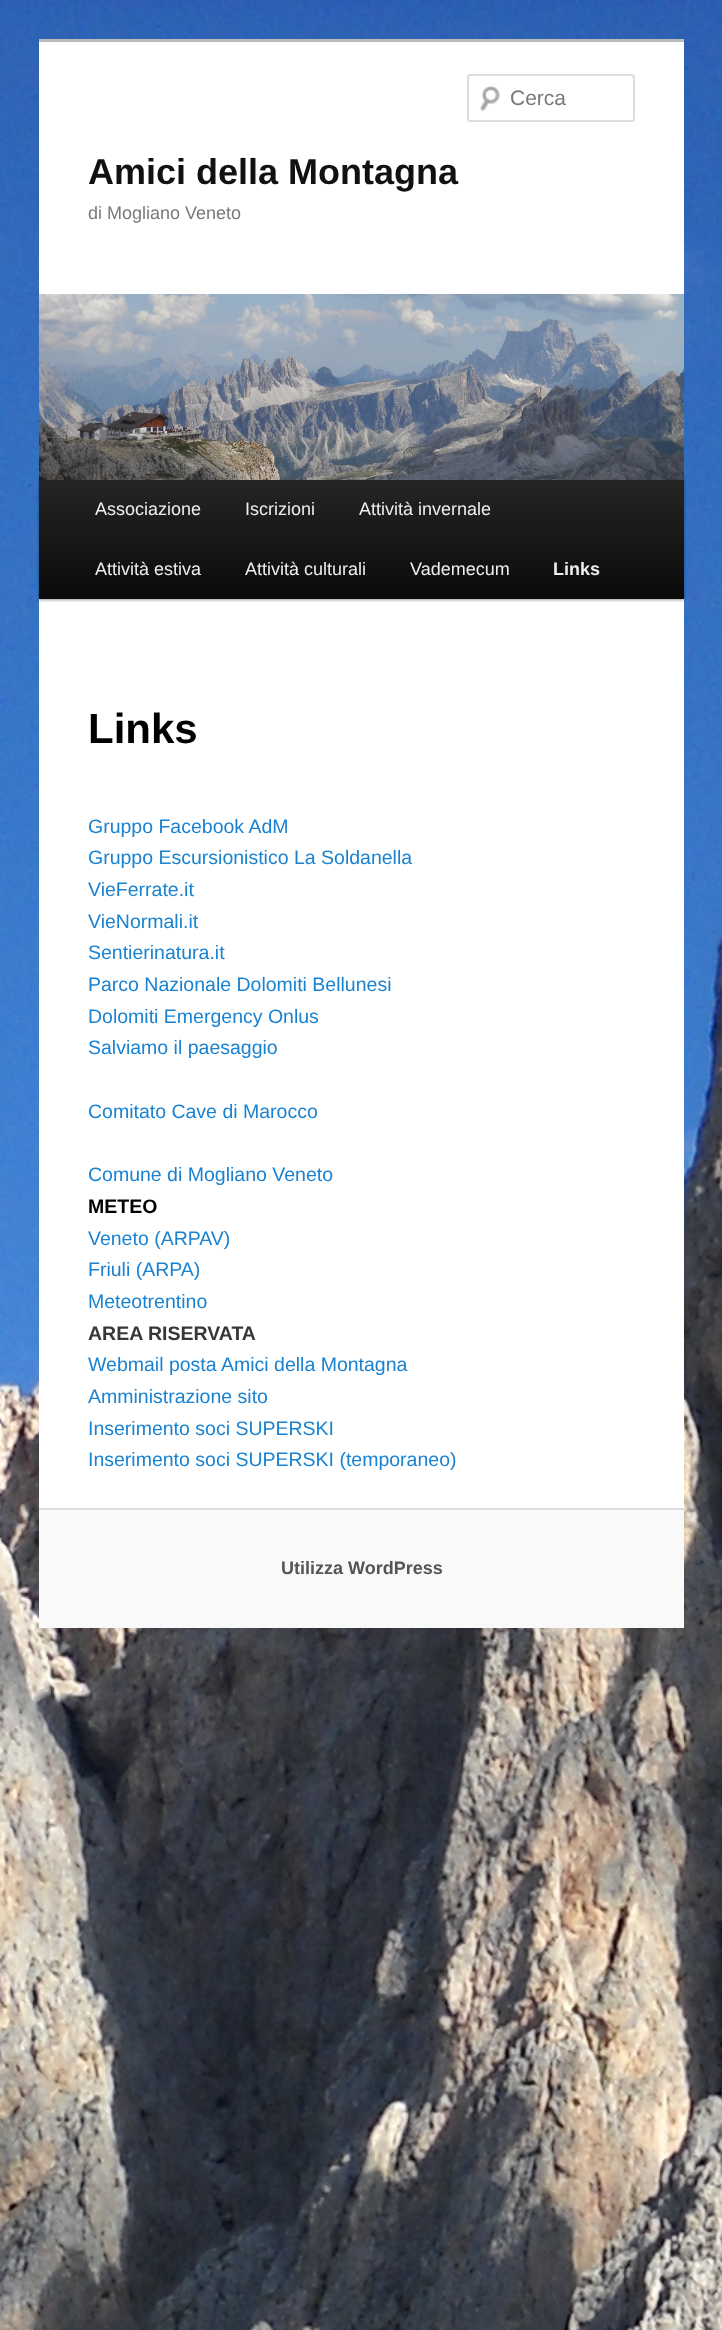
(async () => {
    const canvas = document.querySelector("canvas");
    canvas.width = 722;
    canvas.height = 2330;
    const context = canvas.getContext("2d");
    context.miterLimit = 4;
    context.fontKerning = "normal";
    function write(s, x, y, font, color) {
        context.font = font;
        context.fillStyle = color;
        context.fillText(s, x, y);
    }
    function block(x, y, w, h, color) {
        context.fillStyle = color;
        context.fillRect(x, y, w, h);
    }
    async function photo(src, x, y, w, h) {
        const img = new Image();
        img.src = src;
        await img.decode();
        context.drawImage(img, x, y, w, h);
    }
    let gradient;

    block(0, 0, 722, 2330, "rgb(255, 255, 255)");
    await photo("media/1.png", 0, 0, 722, 2330);
    block(39, 42, 645, 1466, "rgb(255, 255, 255)");
    block(39, 39, 645, 3, "rgb(187, 187, 187)");
    await photo("media/2.png", 480, 85, 20, 27);
    context.fillStyle = "rgb(230, 230, 230)";
    context.beginPath();
    context.moveTo(470, 76);
    context.lineTo(632, 76);
    context.lineTo(633, 78);
    context.lineTo(633, 76);
    context.bezierCurveTo(633, 76, 632, 75, 632, 75);
    context.lineTo(470, 75);
    context.bezierCurveTo(469, 75, 468, 76, 468, 76);
    context.lineTo(468, 78);
    context.bezierCurveTo(468, 77, 469, 76, 470, 76);
    context.closePath();
    context.fill();
    context.beginPath();
    context.roundRect(468, 75, 166, 46, 2);
    context.strokeStyle = "rgb(221, 221, 221)";
    context.lineWidth = 2;
    context.stroke();
    write("Cerca", 510, 105, "21px Liberation Sans", "rgb(122, 122, 122)");
    write("Amici della Montagna", 88, 184, "bold 36px Liberation Sans", "rgb(17, 17, 17)");
    write("di Mogliano Veneto", 88, 219, "18px Liberation Sans", "rgb(122, 122, 122)");
    context.fillStyle = "rgba(0, 0, 0, 0.4)";
    context.filter = "blur(1.5px)";
    context.beginPath();
    context.rect(39, 480, 645, 120);
    context.fill();
    context.filter = "none";
    await photo("media/3.png", 39, 294, 645, 186);
    gradient = context.createLinearGradient(362, 479, 362, 599);
    gradient.addColorStop(0, "rgb(37, 37, 37)");
    gradient.addColorStop(1, "rgb(10, 10, 10)");
    context.fillStyle = gradient;
    context.fillRect(39, 480, 645, 119);
    write("Associazione", 95, 515, "18px Liberation Sans", "rgb(238, 238, 238)");
    write("Iscrizioni", 245, 515, "18px Liberation Sans", "rgb(238, 238, 238)");
    write("Attività invernale", 359, 515, "18px Liberation Sans", "rgb(238, 238, 238)");
    write("Attività estiva", 95, 575, "18px Liberation Sans", "rgb(238, 238, 238)");
    write("Attività culturali", 245, 575, "18px Liberation Sans", "rgb(238, 238, 238)");
    write("Vademecum", 410, 575, "18px Liberation Sans", "rgb(238, 238, 238)");
    write("Links", 553, 575, "bold 18px Liberation Sans", "rgb(238, 238, 238)");
    write("Links", 88, 743, "bold 42px Liberation Sans", "rgb(0, 0, 0)");
    write("Gruppo Facebook AdM", 88, 833, "19.5px Liberation Sans", "rgb(25, 130, 209)");
    write("Gruppo Escursionistico La Soldanella", 88, 864, "19.5px Liberation Sans", "rgb(25, 130, 209)");
    write("VieFerrate.it", 88, 896, "19.5px Liberation Sans", "rgb(25, 130, 209)");
    write("VieNormali.it", 88, 928, "19.5px Liberation Sans", "rgb(25, 130, 209)");
    write("Sentierinatura.it", 88, 959, "19.5px Liberation Sans", "rgb(25, 130, 209)");
    write("Parco Nazionale Dolomiti Bellunesi", 88, 991, "19.5px Liberation Sans", "rgb(25, 130, 209)");
    write("Dolomiti Emergency Onlus", 88, 1023, "19.5px Liberation Sans", "rgb(25, 130, 209)");
    write("Salviamo il paesaggio", 88, 1054, "19.5px Liberation Sans", "rgb(25, 130, 209)");
    write("Comitato Cave di Marocco", 88, 1118, "19.5px Liberation Sans", "rgb(25, 130, 209)");
    write("Comune di Mogliano Veneto", 88, 1181, "19.5px Liberation Sans", "rgb(25, 130, 209)");
    write("METEO", 88, 1213, "bold 19.5px Liberation Sans", "rgb(0, 0, 0)");
    write("Veneto (ARPAV)", 88, 1245, "19.5px Liberation Sans", "rgb(25, 130, 209)");
    write("Friuli (ARPA)", 88, 1276, "19.5px Liberation Sans", "rgb(25, 130, 209)");
    write("Meteotrentino", 88, 1308, "19.5px Liberation Sans", "rgb(25, 130, 209)");
    write("AREA RISERVATA", 88, 1340, "bold 19.5px Liberation Sans", "rgb(55, 55, 55)");
    write("Webmail posta Amici della Montagna", 88, 1371, "19.5px Liberation Sans", "rgb(25, 130, 209)");
    write("Amministrazione sito", 88, 1403, "19.5px Liberation Sans", "rgb(25, 130, 209)");
    write("Inserimento soci SUPERSKI", 88, 1435, "19.5px Liberation Sans", "rgb(25, 130, 209)");
    write("Inserimento soci SUPERSKI (temporaneo)", 88, 1466, "19.5px Liberation Sans", "rgb(25, 130, 209)");
    block(39, 1510, 645, 118, "rgb(249, 249, 249)");
    block(39, 1508, 645, 2, "rgb(221, 221, 221)");
    write("Utilizza WordPress", 281, 1574, "bold 18px Liberation Sans", "rgb(85, 85, 85)");
})();
